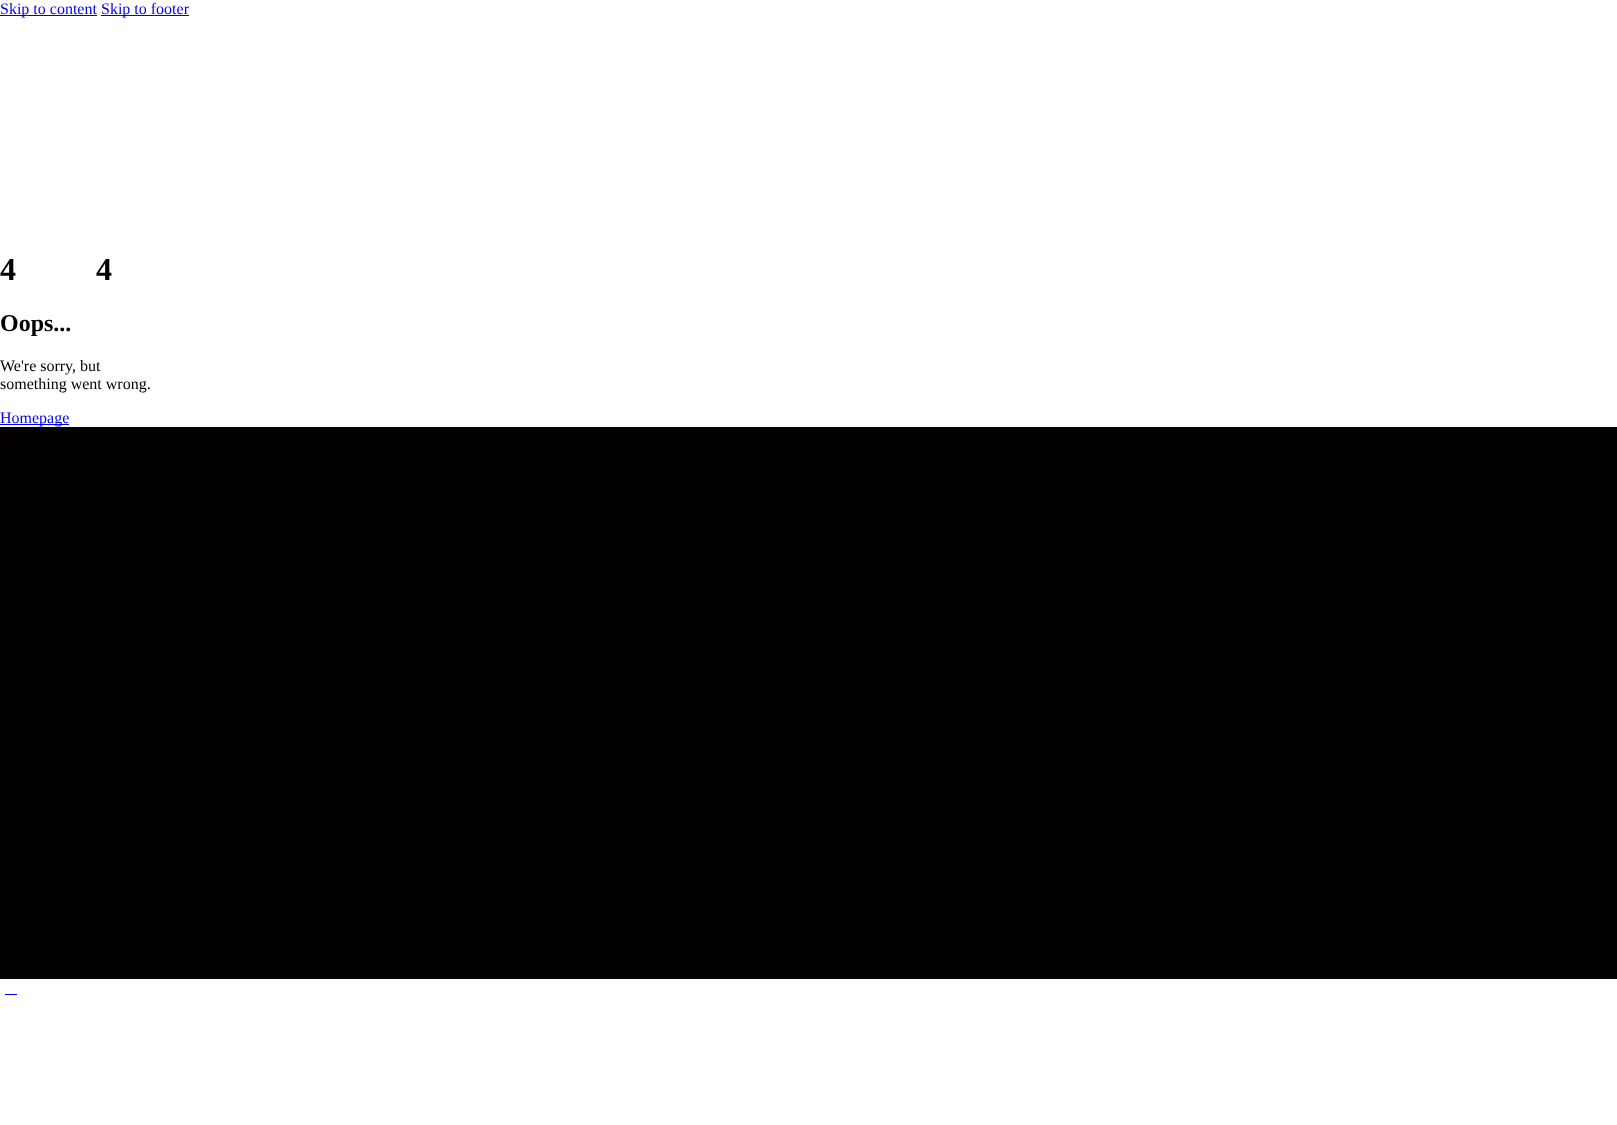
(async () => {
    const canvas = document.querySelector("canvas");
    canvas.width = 1617;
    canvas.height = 1125;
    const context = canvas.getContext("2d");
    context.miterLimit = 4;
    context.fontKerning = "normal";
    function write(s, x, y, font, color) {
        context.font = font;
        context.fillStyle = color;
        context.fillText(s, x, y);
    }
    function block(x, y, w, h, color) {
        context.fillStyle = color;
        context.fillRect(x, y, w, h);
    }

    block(0, 0, 1617, 1125, "rgb(255, 255, 255)");
    block(0, 15, 97, 1, "rgb(0, 0, 238)");
    write("Skip to content", 0, 14, "16px Liberation Serif", "rgb(0, 0, 238)");
    block(101, 15, 88, 1, "rgb(0, 0, 238)");
    write("Skip to footer", 101, 14, "16px Liberation Serif", "rgb(0, 0, 238)");
    write("4", 0, 280, "bold 32px Liberation Serif", "rgb(0, 0, 0)");
    write("4", 96, 280, "bold 32px Liberation Serif", "rgb(0, 0, 0)");
    write("Oops...", 0, 331, "bold 24px Liberation Serif", "rgb(0, 0, 0)");
    write("We're sorry, but", 0, 371, "16px Liberation Serif", "rgb(0, 0, 0)");
    write("something went wrong.", 0, 389, "16px Liberation Serif", "rgb(0, 0, 0)");
    block(0, 424, 69, 1, "rgb(0, 0, 238)");
    write("Homepage", 0, 423, "16px Liberation Serif", "rgb(0, 0, 238)");
    block(0, 427, 1617, 552, "rgb(2, 0, 2)");
    block(5, 994, 12, 1, "rgb(0, 0, 238)");
})();
